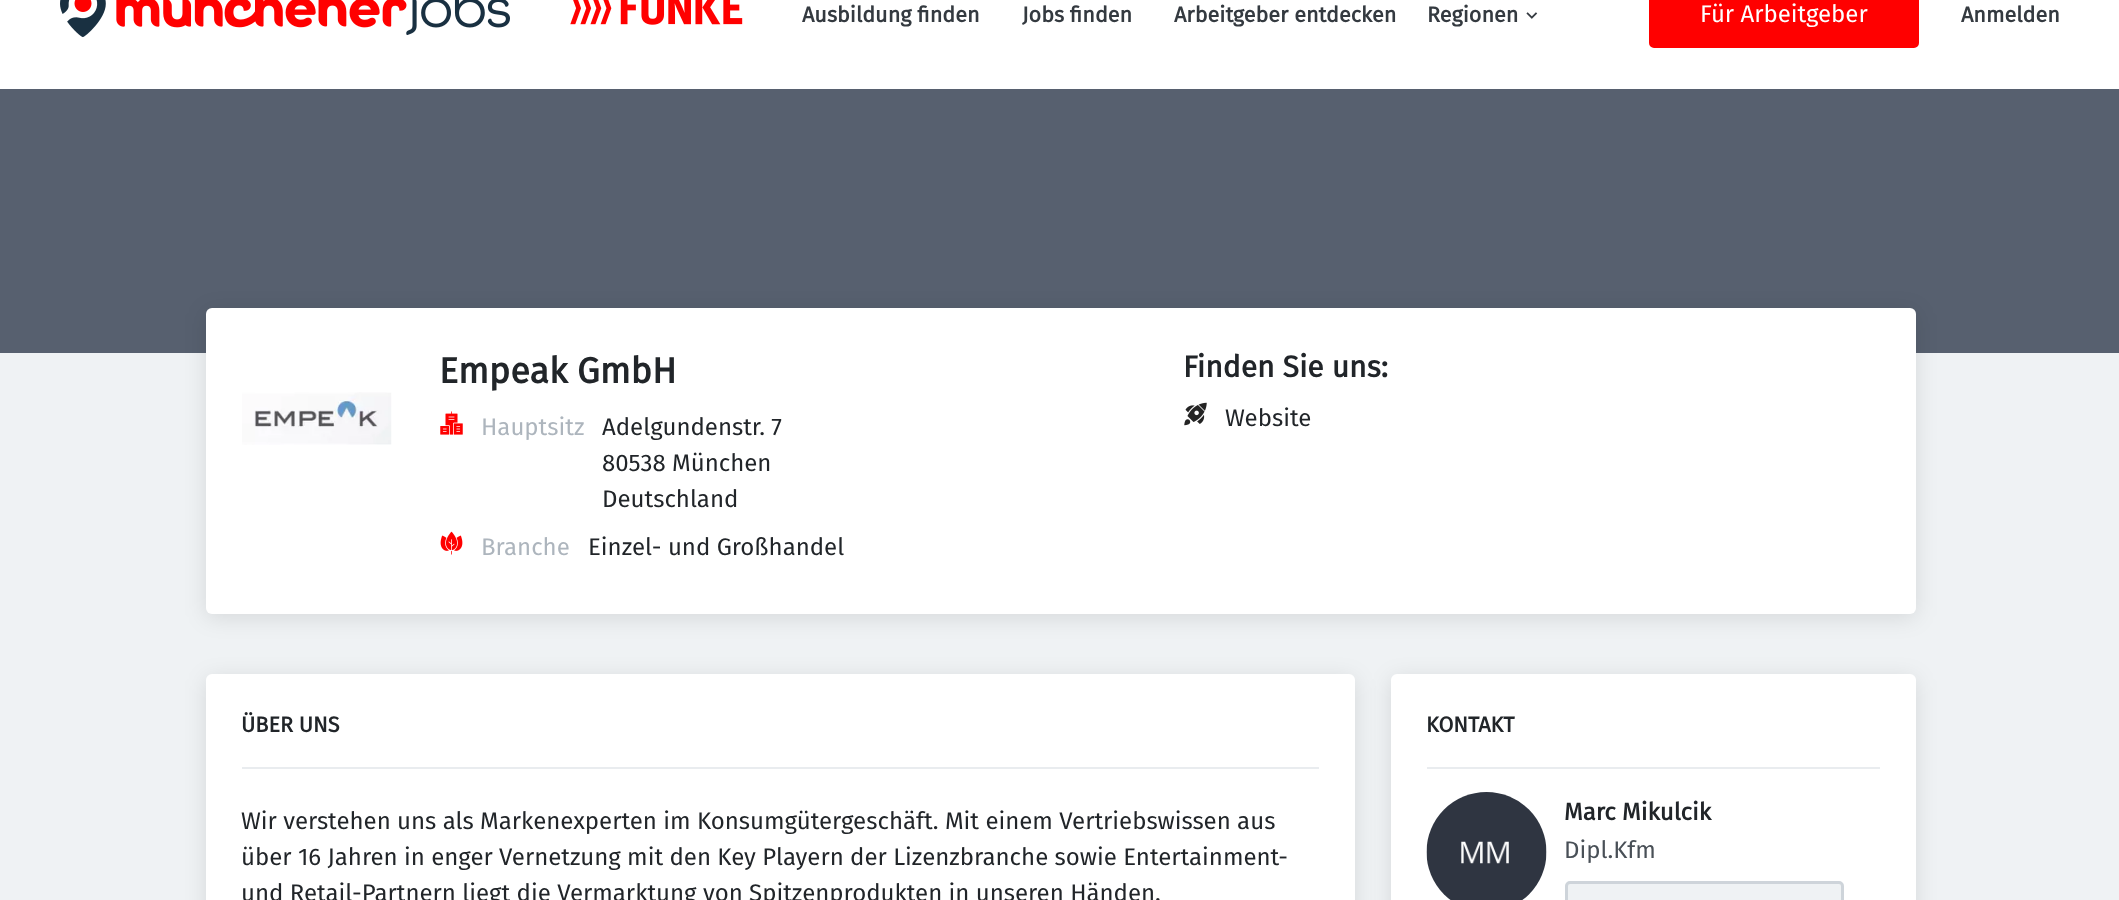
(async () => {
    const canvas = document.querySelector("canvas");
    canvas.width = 2119;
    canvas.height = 900;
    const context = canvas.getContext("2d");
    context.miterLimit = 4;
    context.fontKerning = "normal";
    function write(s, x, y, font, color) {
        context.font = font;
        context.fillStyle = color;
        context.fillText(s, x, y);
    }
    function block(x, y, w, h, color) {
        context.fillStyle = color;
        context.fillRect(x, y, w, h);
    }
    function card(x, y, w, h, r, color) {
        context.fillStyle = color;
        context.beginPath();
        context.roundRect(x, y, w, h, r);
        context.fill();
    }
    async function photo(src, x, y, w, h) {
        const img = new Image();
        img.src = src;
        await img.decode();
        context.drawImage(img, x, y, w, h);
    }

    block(0, 0, 2119, 900, "rgb(239, 242, 244)");
    block(0, 0, 2119, 89, "rgb(255, 255, 255)");
    await photo("media/1.png", 60, 0, 450, 38);
    await photo("media/2.png", 570, 0, 173, 25);
    write("Ausbildung finden", 802, 22, "bold 21.6px Fira Sans", "rgb(52, 58, 64)");
    write("Jobs finden", 1022, 22, "bold 21.6px Fira Sans", "rgb(52, 58, 64)");
    write("Arbeitgeber entdecken", 1174, 22, "bold 21.6px Fira Sans", "rgb(52, 58, 64)");
    write("Regionen", 1427, 22, "bold 21.6px Fira Sans", "rgb(52, 58, 64)");
    await photo("media/3.png", 1526, 12, 12, 7);
    context.fillStyle = "rgb(255, 0, 0)";
    context.beginPath();
    context.roundRect(1650.5, -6.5, 267, 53, 3.5);
    context.fill();
    context.strokeStyle = "rgb(255, 0, 0)";
    context.lineWidth = 3;
    context.stroke();
    write("Für Arbeitgeber", 1700, 22, "24px Fira Sans", "rgb(255, 255, 255)");
    write("Anmelden", 1961, 22, "bold 21.6px Fira Sans", "rgb(52, 58, 64)");
    block(0, 89, 2119, 264, "rgb(87, 96, 111)");
    context.fillStyle = "rgba(0, 0, 0, 0.1)";
    context.filter = "blur(11px)";
    context.beginPath();
    context.roundRect(206, 312, 1710, 306, 6);
    context.fill();
    context.filter = "none";
    card(206, 308, 1710, 306, 6, "rgb(255, 255, 255)");
    await photo("media/4.png", 242, 392, 150, 53);
    write("Empeak GmbH", 439, 383, "bold 36px Fira Sans", "rgb(33, 37, 41)");
    await photo("media/5.png", 440, 411, 23, 24);
    write("Hauptsitz", 481, 435, "24px Fira Sans", "rgb(173, 181, 189)");
    write("Adelgundenstr. 7", 602, 435, "24px Fira Sans", "rgb(33, 37, 41)");
    write("80538 München", 602, 471, "24px Fira Sans", "rgb(33, 37, 41)");
    write("Deutschland", 602, 507, "24px Fira Sans", "rgb(33, 37, 41)");
    await photo("media/6.png", 440, 531, 23, 24);
    write("Branche", 481, 555, "24px Fira Sans", "rgb(173, 181, 189)");
    write("Einzel- und Großhandel", 588, 555, "24px Fira Sans", "rgb(33, 37, 41)");
    write("Finden Sie uns:", 1183, 377, "bold 30px Fira Sans", "rgb(33, 37, 41)");
    await photo("media/7.png", 1184, 402, 23, 24);
    write("Website", 1225, 426, "24px Fira Sans", "rgb(33, 37, 41)");
    context.fillStyle = "rgba(0, 0, 0, 0.1)";
    context.filter = "blur(11px)";
    context.beginPath();
    context.roundRect(206, 678, 1149, 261, 6);
    context.fill();
    context.filter = "none";
    card(206, 674, 1149, 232, 6, "rgb(255, 255, 255)");
    block(242, 767, 1077, 2, "rgb(233, 236, 239)");
    write("ÜBER UNS", 241, 732, "bold 21.6px Fira Sans", "rgb(33, 37, 41)");
    write("Wir verstehen uns als Markenexperten im Konsumgütergeschäft. Mit einem Vertriebswissen aus", 241, 829, "24px Fira Sans", "rgb(33, 37, 41)");
    write("über 16 Jahren in enger Vernetzung mit den Key Playern der Lizenzbranche sowie Entertainment-", 241, 865, "24px Fira Sans", "rgb(33, 37, 41)");
    write("und Retail-Partnern liegt die Vermarktung von Spitzenprodukten in unseren Händen.", 241, 901, "24px Fira Sans", "rgb(33, 37, 41)");
    context.fillStyle = "rgba(0, 0, 0, 0.1)";
    context.filter = "blur(11px)";
    context.beginPath();
    context.roundRect(1391, 678, 525, 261, 6);
    context.fill();
    context.filter = "none";
    card(1391, 674, 525, 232, 6, "rgb(255, 255, 255)");
    block(1427, 767, 453, 2, "rgb(233, 236, 239)");
    write("KONTAKT", 1426, 732, "bold 21.6px Fira Sans", "rgb(33, 37, 41)");
    await photo("media/8.png", 1426, 792, 121, 108);
    write("Marc Mikulcik", 1564, 820, "bold 24px Fira Sans", "rgb(33, 37, 41)");
    write("Dipl.Kfm", 1564, 858, "24px Fira Sans", "rgb(73, 80, 87)");
    context.fillStyle = "rgb(239, 242, 244)";
    context.beginPath();
    context.roundRect(1566.5, 882.5, 276, 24, 3.5);
    context.fill();
    context.strokeStyle = "rgb(206, 212, 218)";
    context.stroke();
})();
